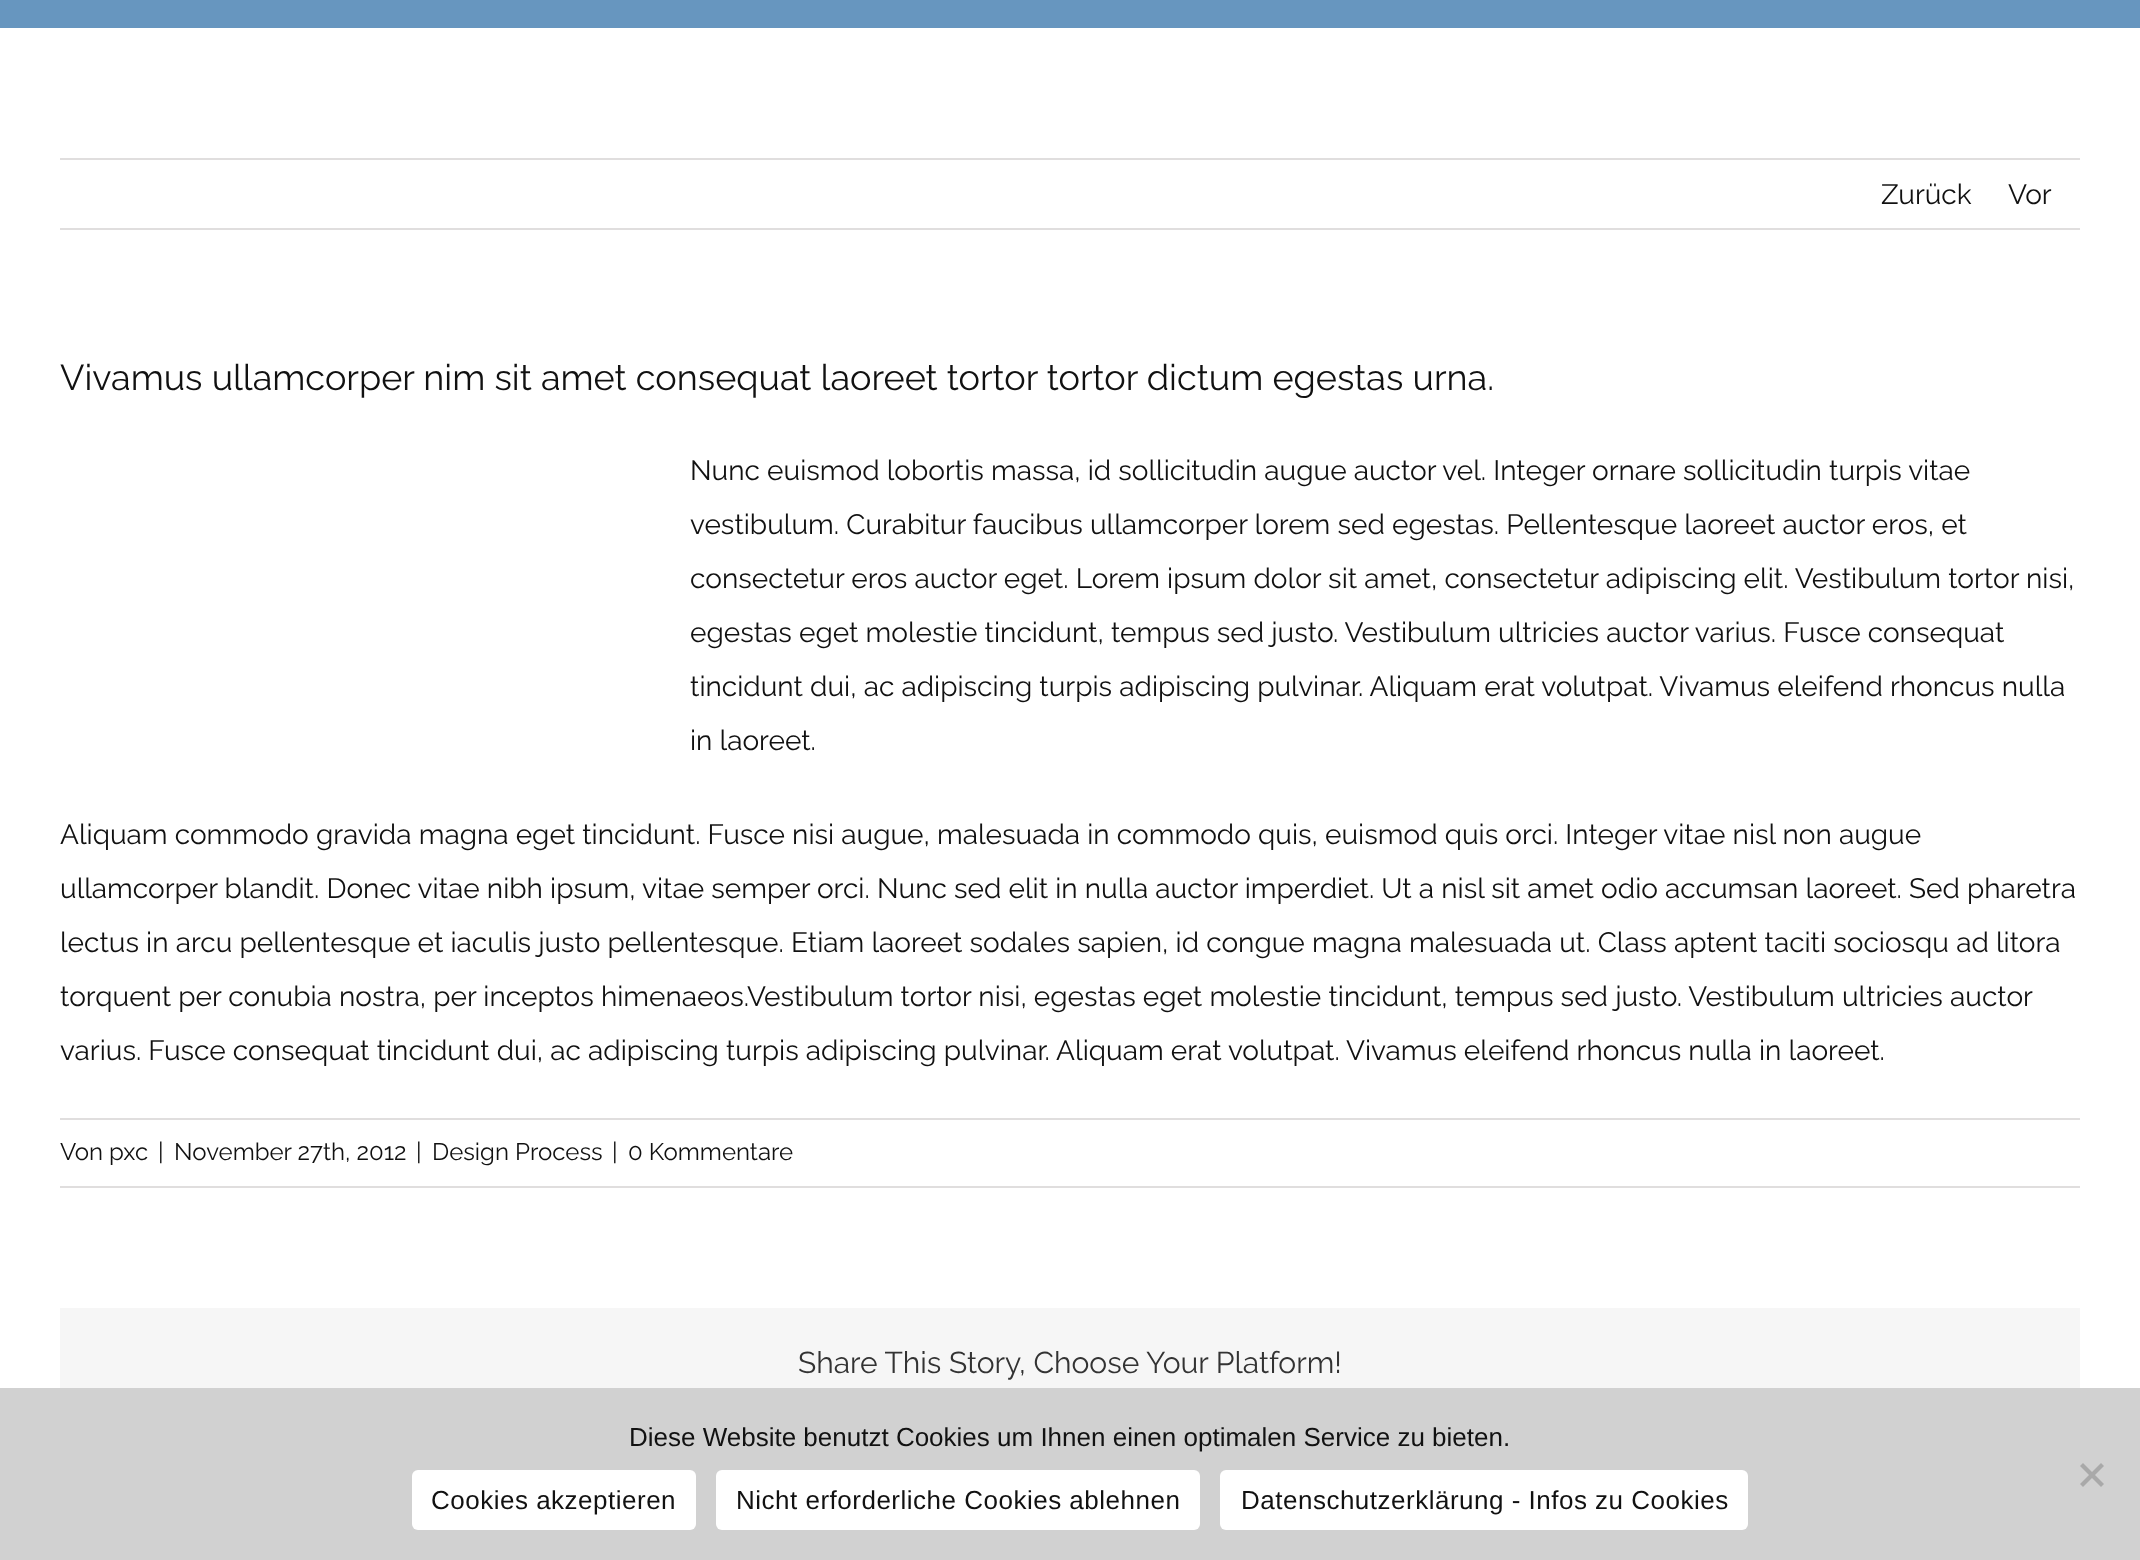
(async () => {
    const canvas = document.querySelector("canvas");
    canvas.width = 2140;
    canvas.height = 1560;
    const context = canvas.getContext("2d");
    context.miterLimit = 4;
    context.fontKerning = "normal";
    function write(s, x, y, font, color) {
        context.font = font;
        context.fillStyle = color;
        context.fillText(s, x, y);
    }
    function block(x, y, w, h, color) {
        context.fillStyle = color;
        context.fillRect(x, y, w, h);
    }
    function card(x, y, w, h, r, color) {
        context.fillStyle = color;
        context.beginPath();
        context.roundRect(x, y, w, h, r);
        context.fill();
    }

    block(0, 0, 2140, 1560, "rgb(255, 255, 255)");
    block(0, 0, 2140, 28, "rgb(103, 150, 191)");
    block(60, 158, 2020, 2, "rgb(224, 222, 222)");
    block(60, 228, 2020, 2, "rgb(224, 222, 222)");
    write("Zurück", 1881, 204, "28px Raleway", "rgb(17, 17, 17)");
    write("Vor", 2008, 204, "28px Raleway", "rgb(17, 17, 17)");
    write("Vivamus ullamcorper nim sit amet consequat laoreet tortor tortor dictum egestas urna.", 60, 390, "36px Raleway", "rgb(17, 17, 17)");
    write("Nunc euismod lobortis massa, id sollicitudin augue auctor vel. Integer ornare sollicitudin turpis vitae", 690, 480, "28px Raleway", "rgb(17, 17, 17)");
    write("vestibulum. Curabitur faucibus ullamcorper lorem sed egestas. Pellentesque laoreet auctor eros, et", 690, 534, "28px Raleway", "rgb(17, 17, 17)");
    write("consectetur eros auctor eget. Lorem ipsum dolor sit amet, consectetur adipiscing elit. Vestibulum tortor nisi,", 690, 588, "28px Raleway", "rgb(17, 17, 17)");
    write("egestas eget molestie tincidunt, tempus sed justo. Vestibulum ultricies auctor varius. Fusce consequat", 690, 642, "28px Raleway", "rgb(17, 17, 17)");
    write("tincidunt dui, ac adipiscing turpis adipiscing pulvinar. Aliquam erat volutpat. Vivamus eleifend rhoncus nulla", 690, 696, "28px Raleway", "rgb(17, 17, 17)");
    write("in laoreet.", 690, 750, "28px Raleway", "rgb(17, 17, 17)");
    write("Aliquam commodo gravida magna eget tincidunt. Fusce nisi augue, malesuada in commodo quis, euismod quis orci. Integer vitae nisl non augue", 60, 844, "28px Raleway", "rgb(17, 17, 17)");
    write("ullamcorper blandit. Donec vitae nibh ipsum, vitae semper orci. Nunc sed elit in nulla auctor imperdiet. Ut a nisl sit amet odio accumsan laoreet. Sed pharetra", 60, 898, "28px Raleway", "rgb(17, 17, 17)");
    write("lectus in arcu pellentesque et iaculis justo pellentesque. Etiam laoreet sodales sapien, id congue magna malesuada ut. Class aptent taciti sociosqu ad litora", 60, 952, "28px Raleway", "rgb(17, 17, 17)");
    write("torquent per conubia nostra, per inceptos himenaeos.Vestibulum tortor nisi, egestas eget molestie tincidunt, tempus sed justo. Vestibulum ultricies auctor", 60, 1006, "28px Raleway", "rgb(17, 17, 17)");
    write("varius. Fusce consequat tincidunt dui, ac adipiscing turpis adipiscing pulvinar. Aliquam erat volutpat. Vivamus eleifend rhoncus nulla in laoreet.", 60, 1060, "28px Raleway", "rgb(17, 17, 17)");
    block(60, 1118, 2020, 2, "rgb(224, 222, 222)");
    block(60, 1186, 2020, 2, "rgb(224, 222, 222)");
    write("Von pxc", 60, 1160, "24px Raleway", "rgb(17, 17, 17)");
    write("|", 158, 1160, "24px Raleway", "rgb(17, 17, 17)");
    write("November 27th, 2012", 174, 1160, "24px Raleway", "rgb(17, 17, 17)");
    write("|", 416, 1160, "24px Raleway", "rgb(17, 17, 17)");
    write("Design Process", 432, 1160, "24px Raleway", "rgb(17, 17, 17)");
    write("|", 612, 1160, "24px Raleway", "rgb(17, 17, 17)");
    write("0 Kommentare", 628, 1160, "24px Raleway", "rgb(17, 17, 17)");
    block(60, 1308, 2020, 80, "rgb(246, 246, 246)");
    write("Share This Story, Choose Your Platform!", 798, 1373, "30px Raleway", "rgb(51, 51, 51)");
    block(0, 1388, 2140, 172, "rgb(209, 209, 209)");
    write("Diese Website benutzt Cookies um Ihnen einen optimalen Service zu bieten.", 629, 1446, "26px Liberation Sans", "rgb(17, 17, 17)");
    context.fillStyle = "rgb(169, 169, 169)";
    context.beginPath();
    context.moveTo(2101, 1463);
    context.lineTo(2104, 1466);
    context.lineTo(2083, 1487);
    context.lineTo(2080, 1484);
    context.closePath();
    context.fill();
    context.beginPath();
    context.moveTo(2080, 1466);
    context.lineTo(2083, 1463);
    context.lineTo(2104, 1484);
    context.lineTo(2101, 1487);
    context.closePath();
    context.fill();
    card(412, 1470, 284, 60, 6, "rgb(255, 255, 255)");
    context.letterSpacing = "0.5px";
    write("Cookies akzeptieren", 431, 1509, "26px Liberation Sans", "rgb(17, 17, 17)");
    card(716, 1470, 484, 60, 6, "rgb(255, 255, 255)");
    write("Nicht erforderliche Cookies ablehnen", 736, 1509, "26px Liberation Sans", "rgb(17, 17, 17)");
    card(1220, 1470, 528, 60, 6, "rgb(255, 255, 255)");
    write("Datenschutzerklärung - Infos zu Cookies", 1241, 1509, "26px Liberation Sans", "rgb(17, 17, 17)");
})();
